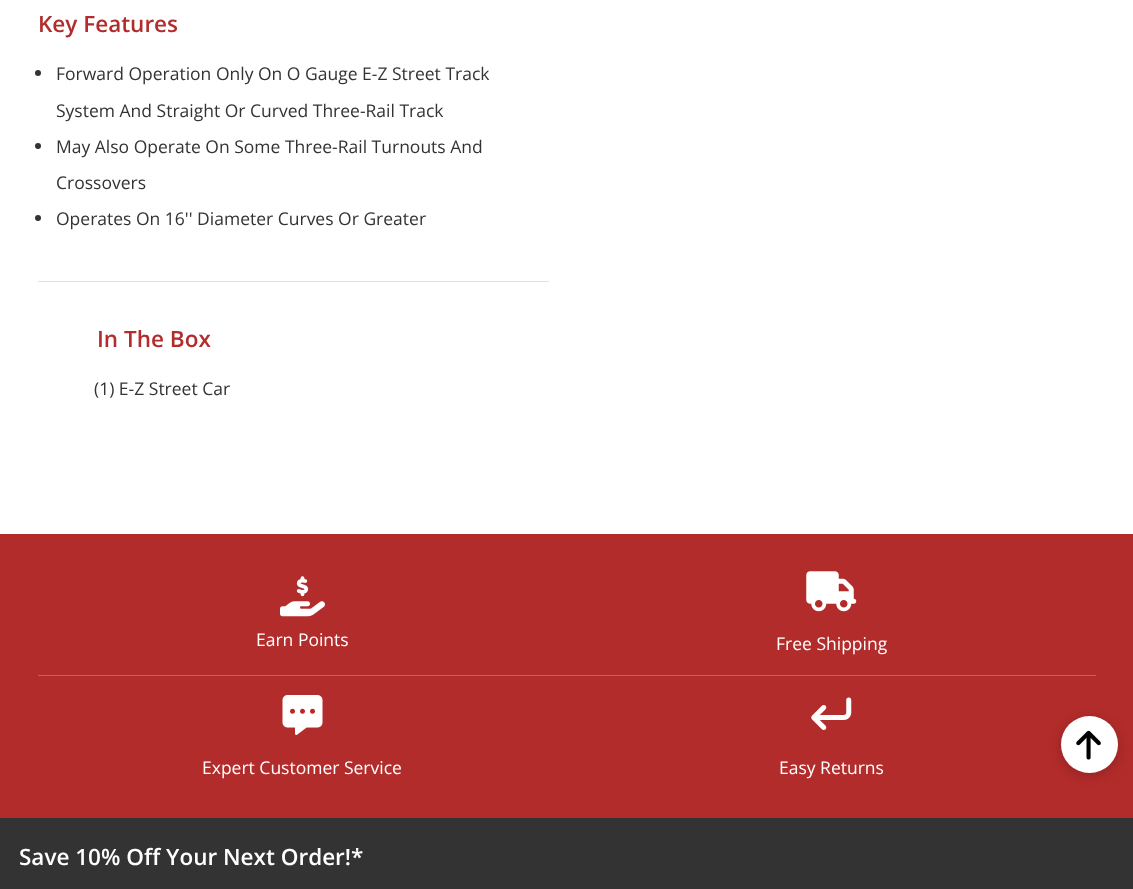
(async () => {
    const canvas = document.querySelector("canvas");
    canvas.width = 1133;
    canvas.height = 889;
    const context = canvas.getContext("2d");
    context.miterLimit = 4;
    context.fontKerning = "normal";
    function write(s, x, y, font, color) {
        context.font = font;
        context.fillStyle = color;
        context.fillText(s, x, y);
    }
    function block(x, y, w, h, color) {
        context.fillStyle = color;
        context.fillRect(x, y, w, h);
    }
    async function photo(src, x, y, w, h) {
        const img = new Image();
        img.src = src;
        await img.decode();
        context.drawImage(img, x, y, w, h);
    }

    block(0, 0, 1133, 889, "rgb(255, 255, 255)");
    block(38, 281, 511, 1, "rgb(225, 225, 225)");
    write("Key Features", 38, 32, "600 22.5px Open Sans", "rgb(178, 44, 43)");
    context.fillStyle = "rgb(51, 51, 51)";
    context.beginPath();
    context.arc(38, 73, 3, 0, Math.PI * 2);
    context.fill();
    write("Forward Operation Only On O Gauge E-Z Street Track", 56, 80, "17.5px Open Sans", "rgb(51, 51, 51)");
    write("System And Straight Or Curved Three-Rail Track", 56, 117, "17.5px Open Sans", "rgb(51, 51, 51)");
    context.beginPath();
    context.arc(38, 146, 3, 0, Math.PI * 2);
    context.fill();
    write("May Also Operate On Some Three-Rail Turnouts And", 56, 153, "17.5px Open Sans", "rgb(51, 51, 51)");
    write("Crossovers", 56, 189, "17.5px Open Sans", "rgb(51, 51, 51)");
    context.beginPath();
    context.arc(38, 218, 3, 0, Math.PI * 2);
    context.fill();
    write("Operates On 16'' Diameter Curves Or Greater", 56, 225, "17.5px Open Sans", "rgb(51, 51, 51)");
    write("In The Box", 97, 347, "600 22.5px Open Sans", "rgb(178, 44, 43)");
    write("(1) E-Z Street Car", 94, 395, "17.5px Open Sans", "rgb(51, 51, 51)");
    block(0, 818, 1133, 71, "rgb(51, 51, 51)");
    block(0, 534, 1133, 284, "rgb(178, 44, 43)");
    block(38, 675, 1058, 1, "rgb(197, 97, 96)");
    await photo("media/1.png", 280, 576, 45, 41);
    write("Earn Points", 256, 646, "17.5px Open Sans", "rgb(255, 255, 255)");
    await photo("media/2.png", 806, 571, 51, 41);
    write("Free Shipping", 776, 650, "17.5px Open Sans", "rgb(255, 255, 255)");
    await photo("media/3.png", 282, 695, 41, 40);
    write("Expert Customer Service", 202, 774, "17.5px Open Sans", "rgb(255, 255, 255)");
    await photo("media/4.png", 811, 697, 41, 33);
    write("Easy Returns", 779, 774, "17.5px Open Sans", "rgb(255, 255, 255)");
    context.fillStyle = "rgba(0, 0, 0, 0.2)";
    context.filter = "blur(6px)";
    context.beginPath();
    context.roundRect(1061, 719, 57, 56, 28);
    context.fill();
    context.filter = "none";
    context.fillStyle = "rgb(255, 255, 255)";
    context.beginPath();
    context.arc(1089.5, 744.5, 28.5, 0, Math.PI * 2);
    context.fill();
    await photo("media/5.png", 1076, 730, 25, 30);
    write("Save 10% Off Your Next Order!*", 19, 865, "600 22.5px Open Sans", "rgb(255, 255, 255)");
})();
